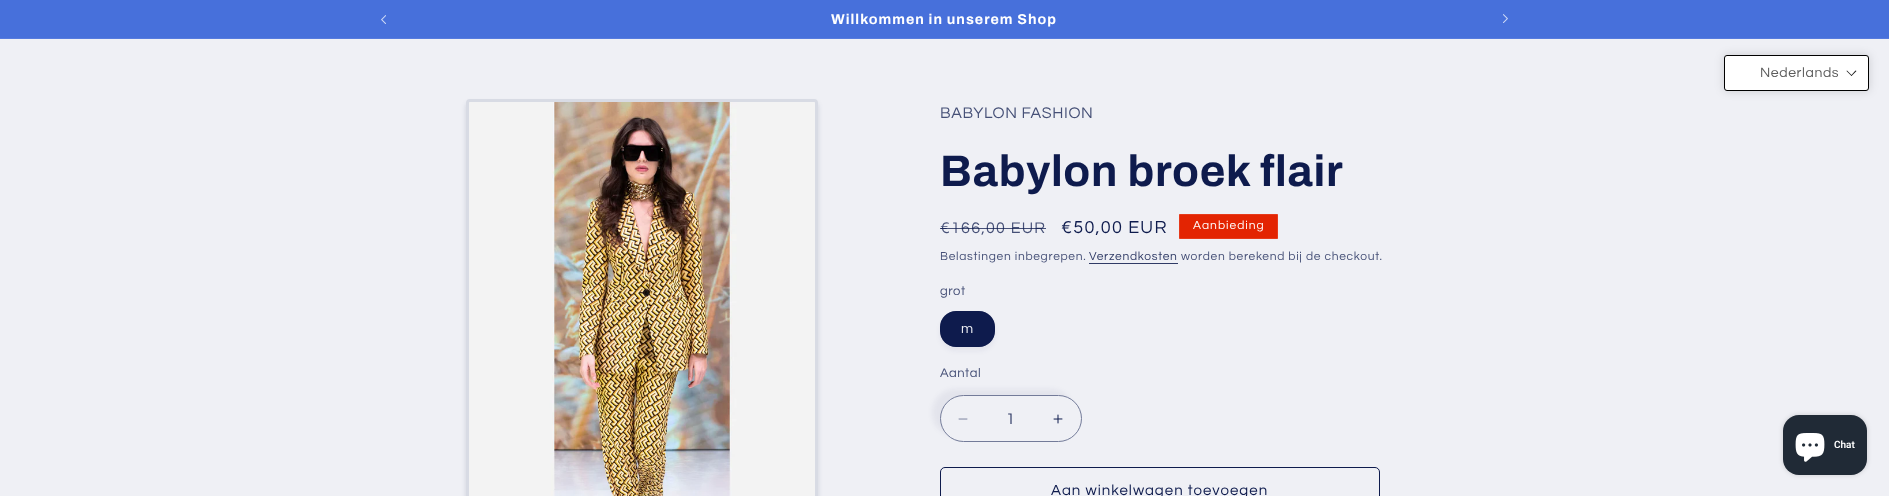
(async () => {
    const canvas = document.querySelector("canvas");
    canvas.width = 1889;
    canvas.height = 496;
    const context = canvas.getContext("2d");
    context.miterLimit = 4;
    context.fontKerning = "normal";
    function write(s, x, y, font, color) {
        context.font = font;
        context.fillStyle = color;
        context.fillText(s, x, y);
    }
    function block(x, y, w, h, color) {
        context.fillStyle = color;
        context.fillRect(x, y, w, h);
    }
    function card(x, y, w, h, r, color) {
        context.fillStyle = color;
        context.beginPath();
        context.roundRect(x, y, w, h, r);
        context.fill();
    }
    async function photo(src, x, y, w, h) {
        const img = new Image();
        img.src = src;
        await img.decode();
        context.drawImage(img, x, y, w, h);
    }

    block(0, 0, 1889, 496, "rgb(239, 240, 245)");
    block(0, 0, 1889, 38, "rgb(71, 112, 219)");
    block(0, 38, 1889, 1, "rgb(86, 123, 222)");
    await photo("media/1.png", 381, 15, 5, 9);
    context.letterSpacing = "1px";
    write("Willkommen in unserem Shop", 831, 24, "bold 14.25px Archivo", "rgb(255, 255, 255)");
    await photo("media/2.png", 1503, 14, 5, 9);
    context.fillStyle = "rgba(0, 0, 0, 0.15)";
    context.filter = "blur(5px)";
    context.beginPath();
    context.roundRect(1724, 55, 145, 36, 3);
    context.fill();
    context.filter = "none";
    context.fillStyle = "rgb(255, 255, 255)";
    context.beginPath();
    context.roundRect(1724.5, 55.5, 144, 35, 2.5);
    context.fill();
    context.strokeStyle = "rgb(0, 0, 0)";
    context.stroke();
    context.letterSpacing = "0.6px";
    write("Nederlands", 1760, 77, "14px Questrial", "rgb(92, 92, 92)");
    context.fillStyle = "rgb(26, 26, 26)";
    context.beginPath();
    context.moveTo(1855.5, 70.5);
    context.lineTo(1856.5, 71);
    context.lineTo(1851.5, 76);
    context.lineTo(1851, 75.5);
    context.closePath();
    context.fill();
    context.beginPath();
    context.moveTo(1847, 70.5);
    context.lineTo(1852, 75.5);
    context.lineTo(1851.5, 76);
    context.lineTo(1846.5, 71);
    context.closePath();
    context.fill();
    context.fillStyle = "rgba(14, 27, 77, 0.15)";
    context.filter = "blur(2.5px)";
    context.beginPath();
    context.roundRect(466, 103, 352, 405, 4);
    context.fill();
    context.filter = "none";
    context.beginPath();
    context.roundRect(467.5, 100.5, 349, 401, 2.5);
    context.strokeStyle = "rgb(216, 219, 228)";
    context.lineWidth = 3;
    context.stroke();
    await photo("media/3.png", 469, 102, 346, 394);
    write("BABYLON FASHION", 940, 118, "16px Questrial", "rgb(70, 80, 119)");
    context.letterSpacing = "0.7px";
    write("Babylon broek flair", 940, 186, "bold 44px Archivo", "rgb(14, 27, 77)");
    context.letterSpacing = "1.25px";
    write("€166,00 EUR", 940, 233, "16px Questrial", "rgb(70, 80, 119)");
    block(940, 228, 106, 1, "rgba(14, 27, 77, 0.75)");
    write("€50,00 EUR", 1061, 233, "18px Questrial", "rgb(14, 27, 77)");
    context.fillStyle = "rgb(227, 36, 2)";
    context.beginPath();
    context.rect(1179.5, 214.5, 98, 24);
    context.fill();
    context.strokeStyle = "rgb(230, 58, 27)";
    context.lineWidth = 1;
    context.stroke();
    context.letterSpacing = "1px";
    write("Aanbieding", 1193, 229, "12px Questrial", "rgb(255, 255, 255)");
    context.letterSpacing = "0.7px";
    write("Belastingen inbegrepen.", 940, 260, "12px Questrial", "rgb(70, 80, 119)");
    write("Verzendkosten", 1089, 260, "12px Questrial", "rgb(48, 59, 102)");
    block(1089, 263, 89, 1, "rgb(48, 59, 102)");
    write("worden berekend bij de checkout.", 1181, 260, "12px Questrial", "rgb(70, 80, 119)");
    context.letterSpacing = "0.5px";
    write("grot", 940, 295, "13px Questrial", "rgb(70, 80, 119)");
    context.fillStyle = "rgba(14, 27, 77, 0.05)";
    context.filter = "blur(2.5px)";
    context.beginPath();
    context.roundRect(940, 315, 55, 36, 16);
    context.fill();
    context.filter = "none";
    card(940, 311, 55, 36, 16, "rgb(14, 27, 77)");
    context.beginPath();
    context.roundRect(940.5, 311.5, 54, 35, 15.5);
    context.strokeStyle = "rgba(14, 27, 77, 0.3)";
    context.stroke();
    context.letterSpacing = "1px";
    write("m", 961, 333, "14px Questrial", "rgb(239, 240, 245)");
    context.letterSpacing = "0.5px";
    write("Aantal", 940, 377, "13px Questrial", "rgb(70, 80, 119)");
    context.fillStyle = "rgba(14, 27, 77, 0.05)";
    context.filter = "blur(2.5px)";
    context.beginPath();
    context.roundRect(932, 389, 142, 47, 23.5);
    context.fill();
    context.filter = "none";
    card(940, 395, 142, 47, 23.5, "rgb(239, 240, 245)");
    await photo("media/4.png", 958, 418, 10, 2);
    await photo("media/5.png", 1053, 414, 10, 10);
    context.beginPath();
    context.roundRect(940.5, 395.5, 141, 46, 23);
    context.strokeStyle = "rgb(115, 123, 153)";
    context.stroke();
    context.letterSpacing = "0px";
    write("1", 1006, 424, "16px Questrial", "rgb(48, 59, 102)");
    context.beginPath();
    context.roundRect(940.5, 467.5, 439, 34, 4.5);
    context.strokeStyle = "rgb(14, 27, 77)";
    context.stroke();
    context.letterSpacing = "1px";
    write("Aan winkelwagen toevoegen", 1051, 495, "15px Questrial", "rgb(14, 27, 77)");
    context.fillStyle = "rgba(0, 0, 0, 0.15)";
    context.filter = "blur(2.5px)";
    context.beginPath();
    context.roundRect(1783, 415, 84, 60, 16);
    context.fill();
    context.filter = "none";
    card(1783, 415, 84, 60, 16, "rgb(32, 42, 54)");
    await photo("media/6.png", 1795, 433, 30, 29);
    context.letterSpacing = "0px";
    write("Chat", 1834, 448, "600 10px Roboto", "rgb(255, 255, 255)");
})();
